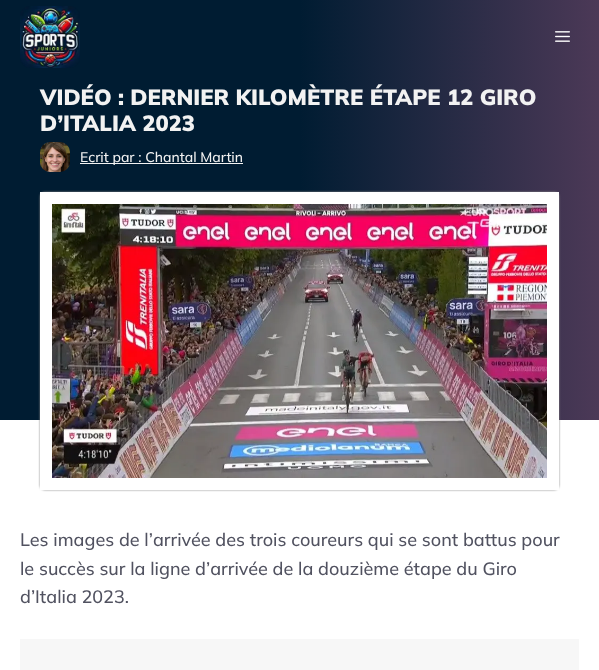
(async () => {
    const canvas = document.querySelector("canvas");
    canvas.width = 599;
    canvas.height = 670;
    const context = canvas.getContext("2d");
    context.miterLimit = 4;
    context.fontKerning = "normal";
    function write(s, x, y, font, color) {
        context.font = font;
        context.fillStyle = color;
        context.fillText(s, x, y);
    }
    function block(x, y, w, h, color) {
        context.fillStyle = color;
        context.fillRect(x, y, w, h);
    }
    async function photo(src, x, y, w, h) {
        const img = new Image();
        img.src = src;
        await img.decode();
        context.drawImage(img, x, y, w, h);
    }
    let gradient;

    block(0, 0, 599, 670, "rgb(255, 255, 255)");
    gradient = context.createLinearGradient(0, 37, 599, 37);
    gradient.addColorStop(0.5, "rgb(0, 28, 50)");
    gradient.addColorStop(1, "rgb(76, 57, 87)");
    context.fillStyle = gradient;
    context.fillRect(0, 0, 599, 74);
    await photo("media/1.png", 20, 6, 60, 62);
    await photo("media/2.png", 555, 31, 15, 11);
    gradient = context.createLinearGradient(0, 247, 599, 247);
    gradient.addColorStop(0.5, "rgb(0, 28, 50)");
    gradient.addColorStop(1, "rgb(76, 57, 87)");
    context.fillStyle = gradient;
    context.fillRect(0, 74, 599, 346);
    write("VIDÉO : DERNIER KILOMÈTRE ÉTAPE 12 GIRO", 40, 105, "900 22px Mulish", "rgb(242, 242, 242)");
    write("D’ITALIA 2023", 40, 131, "900 22px Mulish", "rgb(242, 242, 242)");
    await photo("media/3.png", 40, 142, 30, 30);
    block(80, 163, 163, 1, "rgb(242, 242, 242)");
    write("Ecrit par : Chantal Martin", 80, 162, "500 14px Mulish", "rgb(242, 242, 242)");
    context.fillStyle = "rgb(136, 136, 136)";
    context.filter = "blur(1px)";
    context.beginPath();
    context.roundRect(40, 192, 519, 298, 5);
    context.fill();
    context.filter = "none";
    context.beginPath();
    context.moveTo(46, 198);
    context.lineTo(553, 198);
    context.lineTo(553, 484);
    context.lineTo(46, 484);
    context.closePath();
    context.strokeStyle = "rgb(255, 255, 255)";
    context.lineWidth = 12;
    context.stroke();
    await photo("media/4.png", 52, 204, 495, 274);
    write("Les images de l’arrivée des trois coureurs qui se sont battus pour", 20, 546, "500 18px Mulish", "rgb(81, 82, 96)");
    write("le succès sur la ligne d’arrivée de la douzième étape du Giro", 20, 575, "500 18px Mulish", "rgb(81, 82, 96)");
    write("d’Italia 2023.", 20, 603, "500 18px Mulish", "rgb(81, 82, 96)");
    block(20, 639, 559, 31, "rgb(247, 247, 247)");
})();
